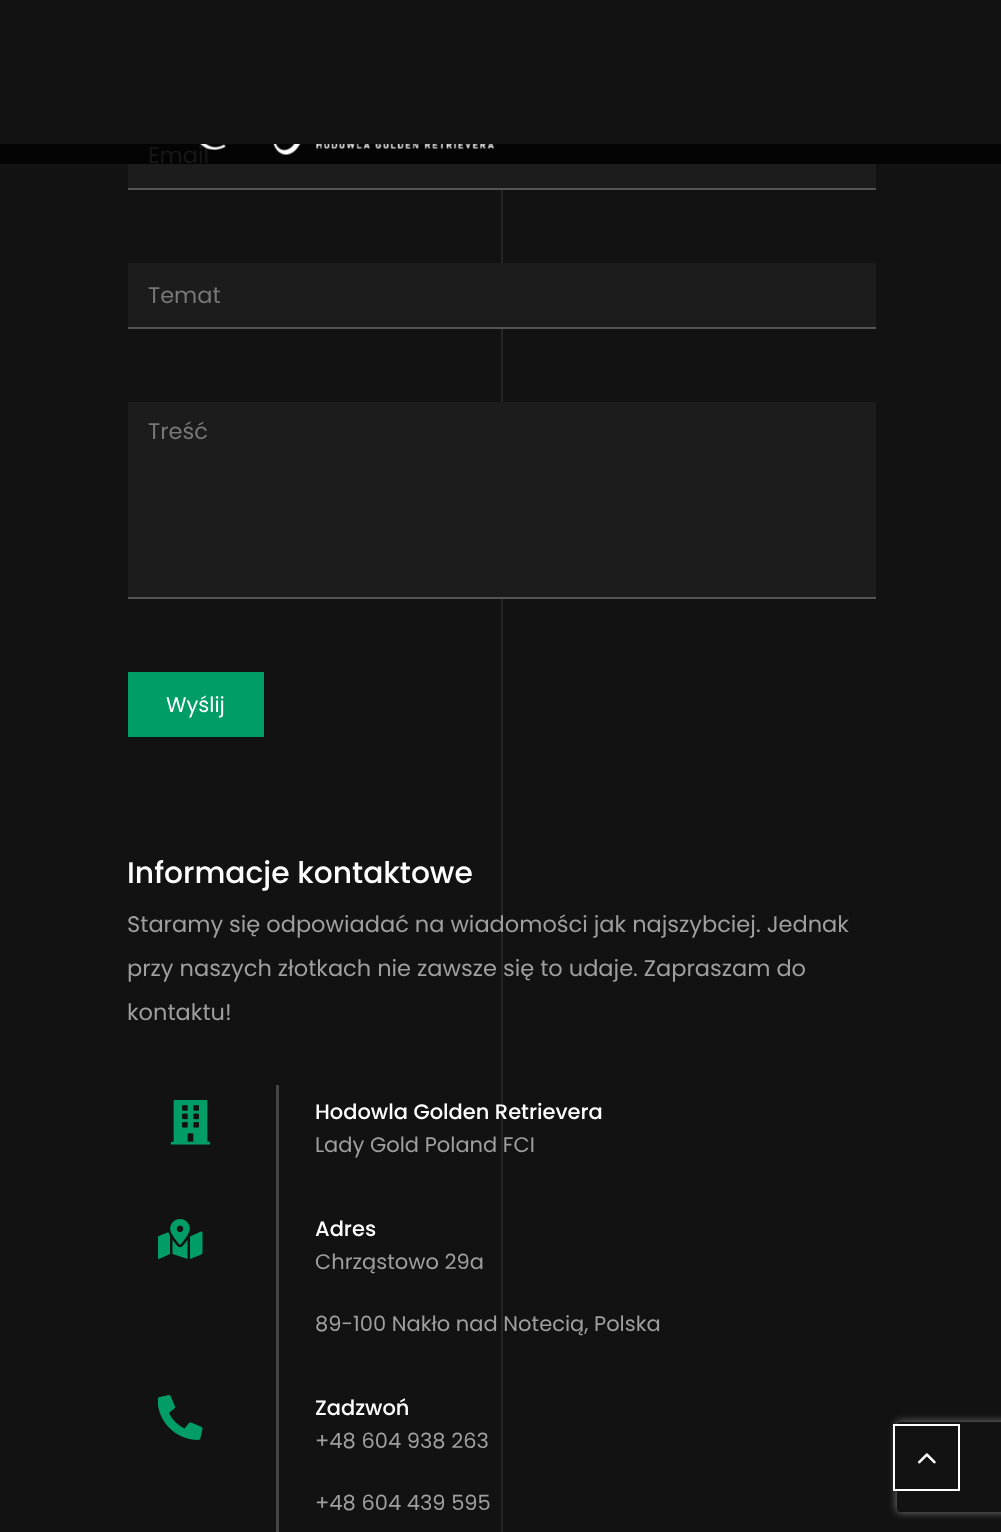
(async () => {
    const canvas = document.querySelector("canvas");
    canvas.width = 1001;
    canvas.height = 1532;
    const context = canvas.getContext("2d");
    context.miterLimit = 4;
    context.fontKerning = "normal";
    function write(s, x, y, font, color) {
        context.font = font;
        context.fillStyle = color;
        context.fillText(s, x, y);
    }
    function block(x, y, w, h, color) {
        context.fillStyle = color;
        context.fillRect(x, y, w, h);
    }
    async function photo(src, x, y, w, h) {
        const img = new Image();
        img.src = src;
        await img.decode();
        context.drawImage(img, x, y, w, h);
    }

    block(0, 0, 1001, 1532, "rgb(18, 18, 18)");
    block(0, 144, 1001, 20, "rgb(4, 4, 4)");
    write("Email", 148, 163, "22.5px Poppins", "rgb(24, 24, 24)");
    await photo("media/1.png", 199, 144, 296, 12);
    block(128, 164, 748, 24, "rgb(28, 28, 28)");
    block(128, 188, 748, 2, "rgb(84, 84, 84)");
    block(501, 190, 2, 1342, "rgb(37, 37, 37)");
    block(128, 263, 748, 64, "rgb(28, 28, 28)");
    block(128, 327, 748, 2, "rgb(84, 84, 84)");
    write("Temat", 148, 303, "22.5px Poppins", "rgb(119, 119, 119)");
    block(128, 402, 748, 195, "rgb(28, 28, 28)");
    block(128, 597, 748, 2, "rgb(84, 84, 84)");
    write("Treść", 148, 439, "22.5px Poppins", "rgb(119, 119, 119)");
    block(128, 672, 136, 65, "rgb(0, 158, 102)");
    write("Wyślij", 166, 712, "21px Poppins", "rgb(255, 255, 255)");
    write("Informacje kontaktowe", 127, 883, "500 29.75px Poppins", "rgb(255, 255, 255)");
    write("Staramy się odpowiadać na wiadomości jak najszybciej. Jednak", 127, 932, "22.5px Poppins", "rgb(159, 159, 159)");
    write("przy naszych złotkach nie zawsze się to udaje. Zapraszam do", 127, 976, "22.5px Poppins", "rgb(159, 159, 159)");
    write("kontaktu!", 127, 1020, "22.5px Poppins", "rgb(159, 159, 159)");
    await photo("media/2.png", 170, 1100, 41, 45);
    block(276, 1085, 3, 447, "rgb(69, 69, 69)");
    write("Hodowla Golden Retrievera", 315, 1119, "500 21px Poppins", "rgb(255, 255, 255)");
    write("Lady Gold Poland FCI", 315, 1152, "21px Poppins", "rgb(159, 159, 159)");
    await photo("media/3.png", 158, 1219, 45, 40);
    write("Adres", 315, 1236, "500 21px Poppins", "rgb(255, 255, 255)");
    write("Chrząstowo 29a", 315, 1269, "21px Poppins", "rgb(159, 159, 159)");
    write("89-100 Nakło nad Notecią, Polska", 315, 1331, "21px Poppins", "rgb(159, 159, 159)");
    await photo("media/4.png", 158, 1395, 45, 45);
    write("Zadzwoń", 315, 1415, "500 21px Poppins", "rgb(255, 255, 255)");
    write("+48 604 938 263", 315, 1448, "21px Poppins", "rgb(159, 159, 159)");
    write("+48 604 439 595", 315, 1510, "21px Poppins", "rgb(159, 159, 159)");
    context.save();
    context.beginPath();
    context.moveTo(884, 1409);
    context.lineTo(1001, 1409);
    context.lineTo(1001, 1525);
    context.lineTo(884, 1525);
    context.closePath();
    context.moveTo(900, 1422);
    context.lineTo(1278, 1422);
    context.bezierCurveTo(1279.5, 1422, 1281, 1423.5, 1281, 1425);
    context.lineTo(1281, 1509);
    context.bezierCurveTo(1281, 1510.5, 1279.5, 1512, 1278, 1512);
    context.lineTo(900, 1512);
    context.bezierCurveTo(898.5, 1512, 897, 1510.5, 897, 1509);
    context.lineTo(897, 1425);
    context.bezierCurveTo(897, 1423.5, 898.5, 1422, 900, 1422);
    context.closePath();
    context.clip("evenodd");
    context.fillStyle = "rgb(128, 128, 128)";
    context.filter = "blur(4px)";
    context.beginPath();
    context.roundRect(897, 1422, 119, 90, 3);
    context.fill();
    context.filter = "none";
    context.restore();
    block(895, 1426, 2, 63, "rgb(18, 18, 18)");
    context.strokeStyle = "rgb(255, 255, 255)";
    context.lineWidth = 2;
    context.strokeRect(894, 1425, 65, 65);
    await photo("media/5.png", 918, 1453, 18, 11);
})();
